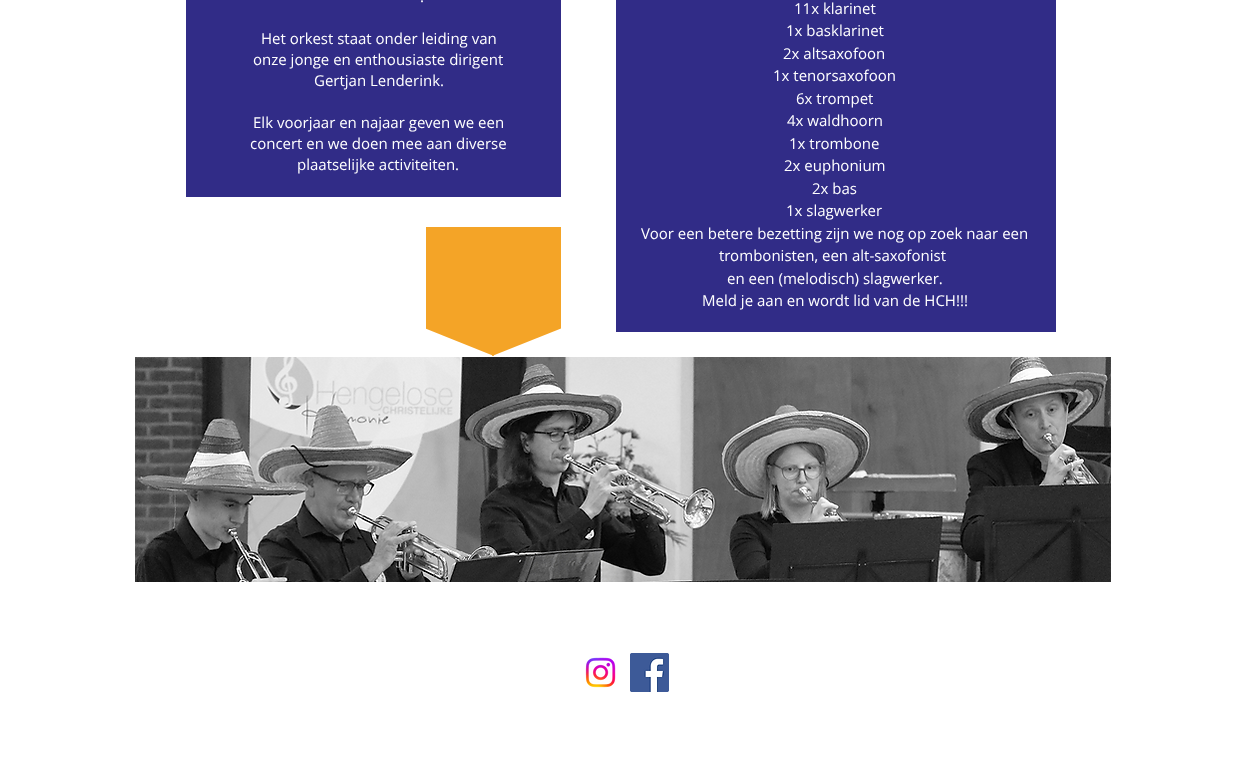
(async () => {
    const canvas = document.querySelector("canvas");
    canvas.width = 1249;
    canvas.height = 770;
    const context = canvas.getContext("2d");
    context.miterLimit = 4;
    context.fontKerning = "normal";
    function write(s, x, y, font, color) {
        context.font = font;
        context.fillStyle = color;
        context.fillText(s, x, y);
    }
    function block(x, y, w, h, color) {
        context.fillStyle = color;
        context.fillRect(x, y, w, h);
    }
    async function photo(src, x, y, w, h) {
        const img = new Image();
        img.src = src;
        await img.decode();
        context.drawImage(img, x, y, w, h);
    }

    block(0, 0, 1249, 770, "rgb(255, 255, 255)");
    block(186, 0, 375, 197, "rgb(49, 44, 135)");
    write(".", 420, 2, "15px Open Sans", "rgb(255, 255, 255)");
    write("Het orkest staat onder leiding van", 261, 44, "15px Open Sans", "rgb(255, 255, 255)");
    write("onze jonge en enthousiaste dirigent", 253, 65, "15px Open Sans", "rgb(255, 255, 255)");
    write("Gertjan Lenderink.", 314, 86, "15px Open Sans", "rgb(255, 255, 255)");
    write("Elk voorjaar en najaar geven we een", 253, 128, "15px Open Sans", "rgb(255, 255, 255)");
    write("concert en we doen mee aan diverse", 250, 149, "15px Open Sans", "rgb(255, 255, 255)");
    write("plaatselijke activiteiten.", 297, 170, "15px Open Sans", "rgb(255, 255, 255)");
    block(616, 0, 440, 332, "rgb(49, 44, 135)");
    write("11x klarinet", 794, 14, "15px Open Sans", "rgb(255, 255, 255)");
    write("1x basklarinet", 786, 36, "15px Open Sans", "rgb(255, 255, 255)");
    write("2x altsaxofoon", 783, 59, "15px Open Sans", "rgb(255, 255, 255)");
    write("1x tenorsaxofoon", 773, 81, "15px Open Sans", "rgb(255, 255, 255)");
    write("6x trompet", 796, 104, "15px Open Sans", "rgb(255, 255, 255)");
    write("4x waldhoorn", 787, 126, "15px Open Sans", "rgb(255, 255, 255)");
    write("1x trombone", 789, 149, "15px Open Sans", "rgb(255, 255, 255)");
    write("2x euphonium", 784, 171, "15px Open Sans", "rgb(255, 255, 255)");
    write("2x bas", 812, 194, "15px Open Sans", "rgb(255, 255, 255)");
    write("1x slagwerker", 786, 216, "15px Open Sans", "rgb(255, 255, 255)");
    write("Voor een betere bezetting zijn we nog op zoek naar een", 641, 239, "15px Open Sans", "rgb(255, 255, 255)");
    write("trombonisten, een alt-saxofonist", 719, 261, "15px Open Sans", "rgb(255, 255, 255)");
    write("en een (melodisch) slagwerker.", 727, 284, "15px Open Sans", "rgb(255, 255, 255)");
    write("Meld je aan en wordt lid van de HCH!!!", 702, 306, "15px Open Sans", "rgb(255, 255, 255)");
    context.save();
    context.beginPath();
    context.rect(426, 227, 135, 130);
    context.clip();
    context.fillStyle = "rgb(244, 164, 39)";
    context.beginPath();
    context.moveTo(492, 356);
    context.lineTo(492, 156);
    context.lineTo(992, 156);
    context.closePath();
    context.fill();
    context.beginPath();
    context.moveTo(494, 156);
    context.lineTo(494, 356);
    context.lineTo(-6, 156);
    context.closePath();
    context.fill();
    context.restore();
    await photo("media/1.png", 135, 357, 976, 225);
    await photo("media/2.png", 585, 657, 31, 31);
    await photo("media/3.png", 630, 653, 39, 39);
})();
